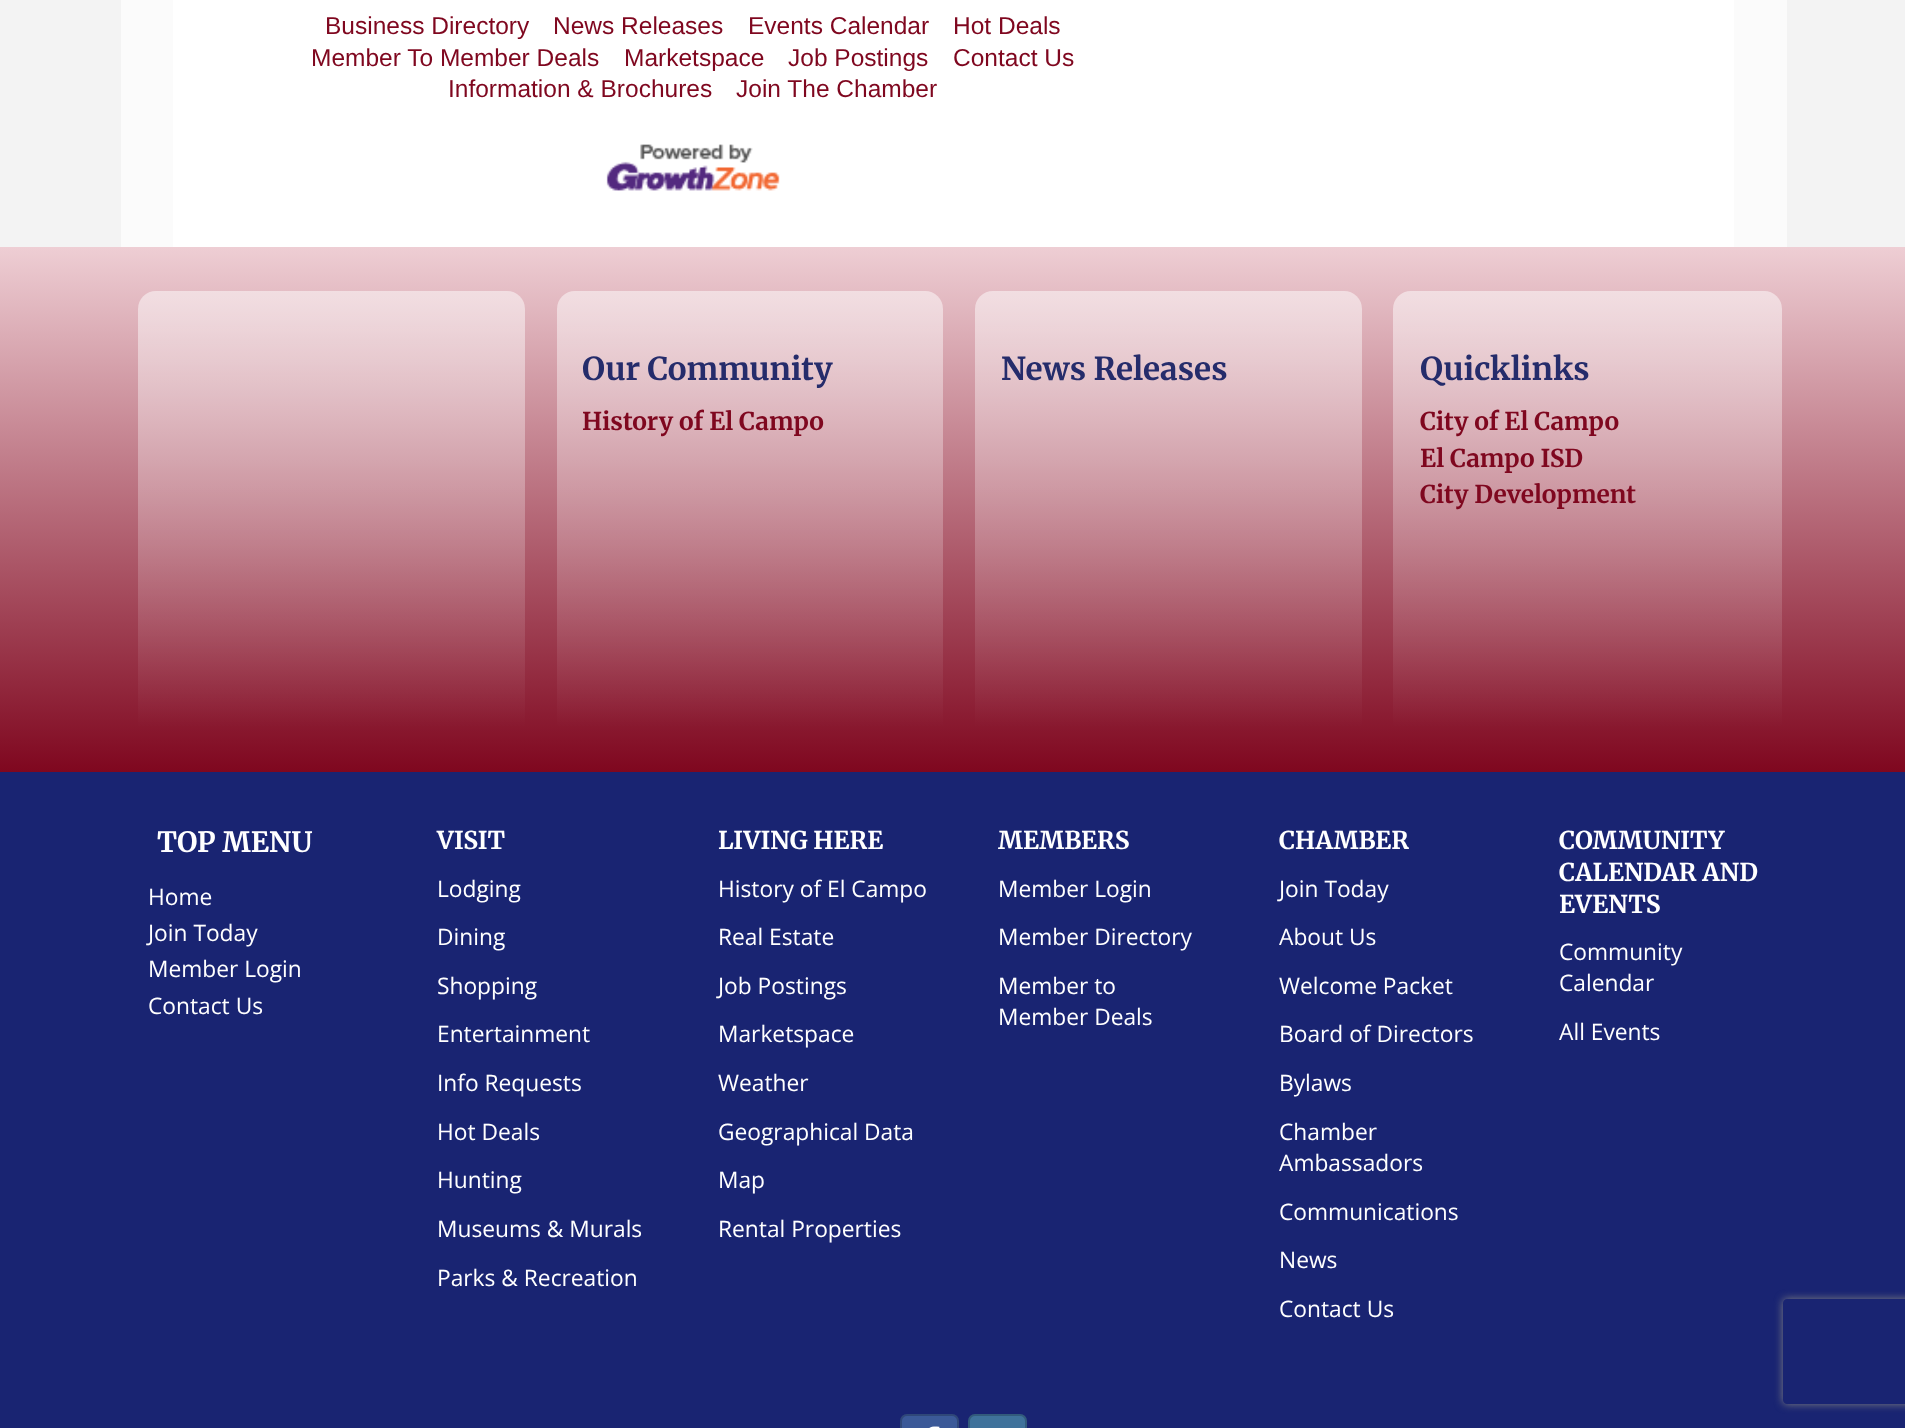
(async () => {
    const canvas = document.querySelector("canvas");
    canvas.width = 1905;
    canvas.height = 1428;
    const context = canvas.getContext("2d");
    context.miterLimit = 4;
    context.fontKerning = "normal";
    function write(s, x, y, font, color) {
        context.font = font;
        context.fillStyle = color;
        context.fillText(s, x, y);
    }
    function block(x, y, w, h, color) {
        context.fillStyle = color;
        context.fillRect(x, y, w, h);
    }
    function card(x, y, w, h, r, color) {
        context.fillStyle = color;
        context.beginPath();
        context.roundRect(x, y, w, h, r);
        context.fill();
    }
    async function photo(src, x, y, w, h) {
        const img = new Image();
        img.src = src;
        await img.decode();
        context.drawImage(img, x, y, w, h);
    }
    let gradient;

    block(0, 0, 1905, 1428, "rgb(243, 243, 243)");
    block(121, 0, 1666, 247, "rgb(251, 251, 251)");
    block(173, 0, 1561, 247, "rgb(255, 255, 255)");
    write("Business Directory", 325, 34, "24.5px Liberation Sans", "rgb(127, 7, 31)");
    write("News Releases", 553, 34, "24.5px Liberation Sans", "rgb(127, 7, 31)");
    write("Events Calendar", 748, 34, "24.5px Liberation Sans", "rgb(127, 7, 31)");
    write("Hot Deals", 953, 34, "24.5px Liberation Sans", "rgb(127, 7, 31)");
    write("Member To Member Deals", 311, 66, "24.5px Liberation Sans", "rgb(127, 7, 31)");
    write("Marketspace", 624, 66, "24.5px Liberation Sans", "rgb(127, 7, 31)");
    write("Job Postings", 788, 66, "24.5px Liberation Sans", "rgb(127, 7, 31)");
    write("Contact Us", 953, 66, "24.5px Liberation Sans", "rgb(127, 7, 31)");
    write("Information & Brochures", 448, 97, "24.5px Liberation Sans", "rgb(127, 7, 31)");
    write("Join The Chamber", 736, 97, "24.5px Liberation Sans", "rgb(127, 7, 31)");
    await photo("media/1.png", 606, 144, 174, 47);
    gradient = context.createLinearGradient(953, 247, 953, 772);
    gradient.addColorStop(0, "rgb(238, 206, 212)");
    gradient.addColorStop(1, "rgb(127, 7, 31)");
    context.fillStyle = gradient;
    context.fillRect(0, 247, 1905, 525);
    gradient = context.createLinearGradient(332, 291, 332, 728);
    gradient.addColorStop(0, "rgba(255, 255, 255, 0.5)");
    gradient.addColorStop(1, "rgba(255, 255, 255, 0)");
    context.fillStyle = gradient;
    context.beginPath();
    context.roundRect(138, 291, 387, 437, [18, 18, 0, 0]);
    context.fill();
    gradient = context.createLinearGradient(750, 291, 750, 728);
    gradient.addColorStop(0, "rgba(255, 255, 255, 0.5)");
    gradient.addColorStop(1, "rgba(255, 255, 255, 0)");
    context.fillStyle = gradient;
    context.beginPath();
    context.roundRect(557, 291, 386, 437, [18, 18, 0, 0]);
    context.fill();
    write("Our Community", 582, 380, "bold 31.5px Merriweather", "rgb(37, 44, 107)");
    write("History of El Campo", 582, 430, "bold 24.5px Merriweather", "rgb(127, 7, 31)");
    gradient = context.createLinearGradient(1168, 291, 1168, 728);
    gradient.addColorStop(0, "rgba(255, 255, 255, 0.5)");
    gradient.addColorStop(1, "rgba(255, 255, 255, 0)");
    context.fillStyle = gradient;
    context.beginPath();
    context.roundRect(975, 291, 387, 437, [18, 18, 0, 0]);
    context.fill();
    write("News Releases", 1001, 380, "bold 31.5px Merriweather", "rgb(37, 44, 107)");
    gradient = context.createLinearGradient(1587, 291, 1587, 728);
    gradient.addColorStop(0, "rgba(255, 255, 255, 0.5)");
    gradient.addColorStop(1, "rgba(255, 255, 255, 0)");
    context.fillStyle = gradient;
    context.beginPath();
    context.roundRect(1393, 291, 389, 437, [18, 18, 0, 0]);
    context.fill();
    write("Quicklinks", 1420, 380, "bold 31.5px Merriweather", "rgb(37, 44, 107)");
    write("City of El Campo", 1420, 430, "bold 24.5px Merriweather", "rgb(127, 7, 31)");
    write("El Campo ISD", 1420, 467, "bold 24.5px Merriweather", "rgb(127, 7, 31)");
    write("City Development", 1420, 503, "bold 24.5px Merriweather", "rgb(127, 7, 31)");
    block(0, 772, 1905, 656, "rgb(25, 36, 114)");
    write("TOP MENU", 157, 852, "bold 28px Merriweather", "rgb(255, 255, 255)");
    write("Home", 148, 905, "22.75px Open Sans", "rgb(255, 255, 255)");
    write("Join Today", 148, 941, "22.75px Open Sans", "rgb(255, 255, 255)");
    write("Member Login", 148, 977, "22.75px Open Sans", "rgb(255, 255, 255)");
    write("Contact Us", 148, 1014, "22.75px Open Sans", "rgb(255, 255, 255)");
    write("VISIT", 437, 849, "bold 24.5px Merriweather", "rgb(255, 255, 255)");
    write("Lodging", 437, 897, "22.75px Open Sans", "rgb(255, 255, 255)");
    write("Dining", 437, 945, "22.75px Open Sans", "rgb(255, 255, 255)");
    write("Shopping", 437, 994, "22.75px Open Sans", "rgb(255, 255, 255)");
    write("Entertainment", 437, 1042, "22.75px Open Sans", "rgb(255, 255, 255)");
    write("Info Requests", 437, 1091, "22.75px Open Sans", "rgb(255, 255, 255)");
    write("Hot Deals", 437, 1140, "22.75px Open Sans", "rgb(255, 255, 255)");
    write("Hunting", 437, 1188, "22.75px Open Sans", "rgb(255, 255, 255)");
    write("Museums & Murals", 437, 1237, "22.75px Open Sans", "rgb(255, 255, 255)");
    write("Parks & Recreation", 437, 1286, "22.75px Open Sans", "rgb(255, 255, 255)");
    write("LIVING HERE", 718, 849, "bold 24.5px Merriweather", "rgb(255, 255, 255)");
    write("History of El Campo", 718, 897, "22.75px Open Sans", "rgb(255, 255, 255)");
    write("Real Estate", 718, 945, "22.75px Open Sans", "rgb(255, 255, 255)");
    write("Job Postings", 718, 994, "22.75px Open Sans", "rgb(255, 255, 255)");
    write("Marketspace", 718, 1042, "22.75px Open Sans", "rgb(255, 255, 255)");
    write("Weather", 718, 1091, "22.75px Open Sans", "rgb(255, 255, 255)");
    write("Geographical Data", 718, 1140, "22.75px Open Sans", "rgb(255, 255, 255)");
    write("Map", 718, 1188, "22.75px Open Sans", "rgb(255, 255, 255)");
    write("Rental Properties", 718, 1237, "22.75px Open Sans", "rgb(255, 255, 255)");
    write("MEMBERS", 998, 849, "bold 24.5px Merriweather", "rgb(255, 255, 255)");
    write("Member Login", 998, 897, "22.75px Open Sans", "rgb(255, 255, 255)");
    write("Member Directory", 998, 945, "22.75px Open Sans", "rgb(255, 255, 255)");
    write("Member to", 998, 994, "22.75px Open Sans", "rgb(255, 255, 255)");
    write("Member Deals", 998, 1025, "22.75px Open Sans", "rgb(255, 255, 255)");
    write("CHAMBER", 1279, 849, "bold 24.5px Merriweather", "rgb(255, 255, 255)");
    write("Join Today", 1279, 897, "22.75px Open Sans", "rgb(255, 255, 255)");
    write("About Us", 1279, 945, "22.75px Open Sans", "rgb(255, 255, 255)");
    write("Welcome Packet", 1279, 994, "22.75px Open Sans", "rgb(255, 255, 255)");
    write("Board of Directors", 1279, 1042, "22.75px Open Sans", "rgb(255, 255, 255)");
    write("Bylaws", 1279, 1091, "22.75px Open Sans", "rgb(255, 255, 255)");
    write("Chamber", 1279, 1140, "22.75px Open Sans", "rgb(255, 255, 255)");
    write("Ambassadors", 1279, 1171, "22.75px Open Sans", "rgb(255, 255, 255)");
    write("Communications", 1279, 1220, "22.75px Open Sans", "rgb(255, 255, 255)");
    write("News", 1279, 1268, "22.75px Open Sans", "rgb(255, 255, 255)");
    write("Contact Us", 1279, 1317, "22.75px Open Sans", "rgb(255, 255, 255)");
    write("COMMUNITY", 1559, 849, "bold 24.5px Merriweather", "rgb(255, 255, 255)");
    write("CALENDAR AND", 1559, 881, "bold 24.5px Merriweather", "rgb(255, 255, 255)");
    write("EVENTS", 1559, 913, "bold 24.5px Merriweather", "rgb(255, 255, 255)");
    write("Community", 1559, 960, "22.75px Open Sans", "rgb(255, 255, 255)");
    write("Calendar", 1559, 991, "22.75px Open Sans", "rgb(255, 255, 255)");
    write("All Events", 1559, 1040, "22.75px Open Sans", "rgb(255, 255, 255)");
    card(900, 1414, 59, 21, 7, "rgb(59, 89, 152)");
    context.beginPath();
    context.roundRect(901, 1415, 57, 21, 6);
    context.strokeStyle = "rgba(0, 0, 0, 0.2)";
    context.lineWidth = 2;
    context.stroke();
    await photo("media/2.png", 929, 1426, 11, 2);
    card(968, 1414, 59, 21, 7, "rgb(63, 114, 155)");
    context.beginPath();
    context.roundRect(969, 1415, 57, 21, 6);
    context.stroke();
    context.save();
    context.beginPath();
    context.moveTo(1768, 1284);
    context.lineTo(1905, 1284);
    context.lineTo(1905, 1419);
    context.lineTo(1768, 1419);
    context.closePath();
    context.moveTo(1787, 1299);
    context.lineTo(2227, 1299);
    context.bezierCurveTo(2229, 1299, 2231, 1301, 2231, 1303);
    context.lineTo(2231, 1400);
    context.bezierCurveTo(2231, 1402, 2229, 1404, 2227, 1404);
    context.lineTo(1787, 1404);
    context.bezierCurveTo(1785, 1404, 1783, 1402, 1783, 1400);
    context.lineTo(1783, 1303);
    context.bezierCurveTo(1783, 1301, 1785, 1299, 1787, 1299);
    context.closePath();
    context.clip("evenodd");
    context.fillStyle = "rgb(128, 128, 128)";
    context.filter = "blur(4.5px)";
    context.beginPath();
    context.roundRect(1783, 1299, 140, 105, 4);
    context.fill();
    context.filter = "none";
    context.restore();
})();
